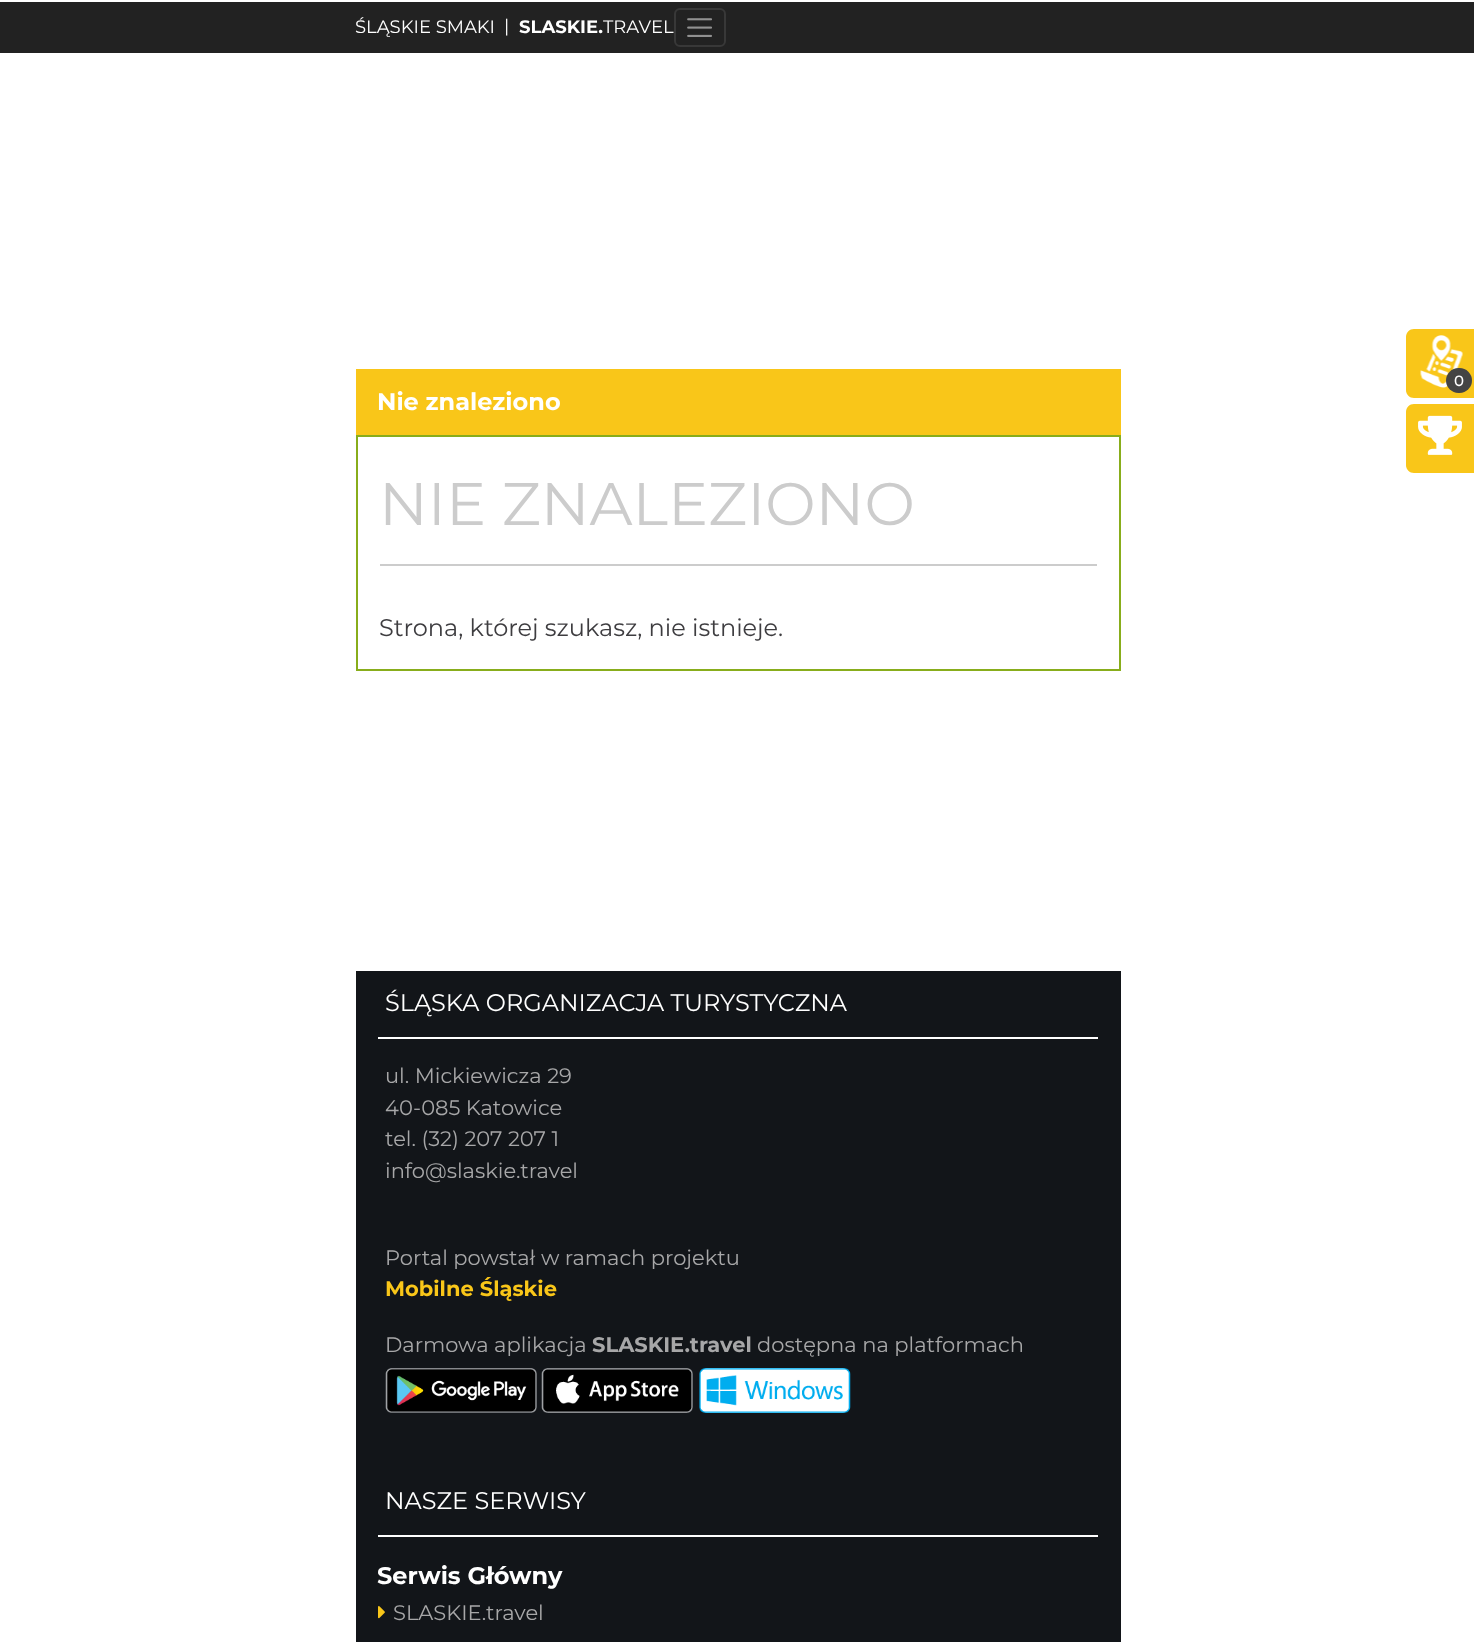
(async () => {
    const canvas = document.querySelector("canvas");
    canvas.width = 1474;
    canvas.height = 1642;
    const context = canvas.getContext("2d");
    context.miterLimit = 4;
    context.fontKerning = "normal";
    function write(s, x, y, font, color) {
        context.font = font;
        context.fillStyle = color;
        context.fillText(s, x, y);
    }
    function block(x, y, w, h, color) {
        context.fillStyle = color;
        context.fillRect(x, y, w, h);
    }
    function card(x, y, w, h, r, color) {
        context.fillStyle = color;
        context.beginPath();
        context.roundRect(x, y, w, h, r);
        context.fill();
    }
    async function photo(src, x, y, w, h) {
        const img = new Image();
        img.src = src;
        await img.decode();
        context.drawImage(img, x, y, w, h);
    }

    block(0, 0, 1474, 1642, "rgb(255, 255, 255)");
    block(0, 2, 1474, 51, "rgb(34, 34, 34)");
    write("ŚLĄSKIE SMAKI", 355, 33, "18px Montserrat", "rgb(255, 255, 255)");
    write("|", 504, 32, "18px Montserrat", "rgb(255, 255, 255)");
    write("SLASKIE.", 519, 33, "bold 18px Montserrat", "rgb(255, 255, 255)");
    write("TRAVEL", 603, 33, "18px Montserrat", "rgb(255, 255, 255)");
    context.beginPath();
    context.roundRect(675, 9, 50, 37, 5);
    context.strokeStyle = "rgb(56, 56, 56)";
    context.lineWidth = 2;
    context.stroke();
    await photo("media/1.png", 687, 18, 25, 19);
    context.fillStyle = "rgb(249, 198, 25)";
    context.beginPath();
    context.moveTo(1414, 329);
    context.lineTo(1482, 329);
    context.lineTo(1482, 398);
    context.lineTo(1414, 398);
    context.bezierCurveTo(1409.5, 398, 1406, 394.5, 1406, 390);
    context.lineTo(1406, 337);
    context.bezierCurveTo(1406, 332.5, 1409.5, 329, 1414, 329);
    context.closePath();
    context.fill();
    await photo("media/2.png", 1420, 335, 43, 53);
    card(1446, 368, 26, 25, 12.5, "rgb(68, 68, 68)");
    write("0", 1454, 386, "500 15px Montserrat", "rgb(255, 255, 255)");
    block(356, 369, 765, 66, "rgb(249, 198, 25)");
    write("Nie znaleziono", 377, 410, "bold 24px Montserrat", "rgb(255, 255, 255)");
    context.strokeStyle = "rgb(136, 173, 27)";
    context.strokeRect(357, 436, 763, 234);
    block(380, 564, 717, 2, "rgb(204, 204, 204)");
    write("NIE ZNALEZIONO", 379, 525, "60px Montserrat", "rgb(204, 204, 204)");
    write("Strona, której szukasz, nie istnieje.", 379, 636, "24px Montserrat", "rgb(62, 61, 64)");
    context.fillStyle = "rgb(249, 198, 25)";
    context.beginPath();
    context.moveTo(1414, 404);
    context.lineTo(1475, 404);
    context.lineTo(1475, 473);
    context.lineTo(1414, 473);
    context.bezierCurveTo(1409.5, 473, 1406, 469.5, 1406, 465);
    context.lineTo(1406, 412);
    context.bezierCurveTo(1406, 407.5, 1409.5, 404, 1414, 404);
    context.closePath();
    context.fill();
    await photo("media/3.png", 1418, 415, 44, 40);
    block(356, 971, 765, 671, "rgb(18, 21, 25)");
    block(378, 1037, 720, 2, "rgb(255, 255, 255)");
    write("ŚLĄSKA ORGANIZACJA TURYSTYCZNA", 385, 1011, "24px Montserrat", "rgb(255, 255, 255)");
    write("ul. Mickiewicza 29", 385, 1083, "21px Montserrat", "rgb(167, 167, 168)");
    write("40-085 Katowice", 385, 1115, "21px Montserrat", "rgb(167, 167, 168)");
    write("tel. (32) 207 207 1", 385, 1146, "21px Montserrat", "rgb(167, 167, 168)");
    write("info@slaskie.travel", 385, 1178, "21px Montserrat", "rgb(167, 167, 168)");
    write("Portal powstał w ramach projektu", 385, 1265, "21px Montserrat", "rgb(167, 167, 168)");
    write("Mobilne Śląskie", 385, 1296, "bold 21px Montserrat", "rgb(249, 198, 25)");
    write("Darmowa aplikacja", 385, 1352, "21px Montserrat", "rgb(167, 167, 168)");
    write("SLASKIE.travel", 592, 1352, "bold 21px Montserrat", "rgb(167, 167, 168)");
    write("dostępna na platformach", 757, 1352, "21px Montserrat", "rgb(167, 167, 168)");
    await photo("media/4.png", 385, 1368, 152, 45);
    await photo("media/5.png", 541, 1368, 152, 45);
    await photo("media/6.png", 699, 1368, 152, 45);
    block(378, 1535, 720, 2, "rgb(255, 255, 255)");
    write("NASZE SERWISY", 385, 1509, "24px Montserrat", "rgb(255, 255, 255)");
    write("Serwis Główny", 377, 1584, "bold 24px Montserrat", "rgb(255, 255, 255)");
    await photo("media/7.png", 378, 1606, 7, 13);
    write("SLASKIE.travel", 393, 1620, "21px Montserrat", "rgb(167, 167, 168)");
})();
